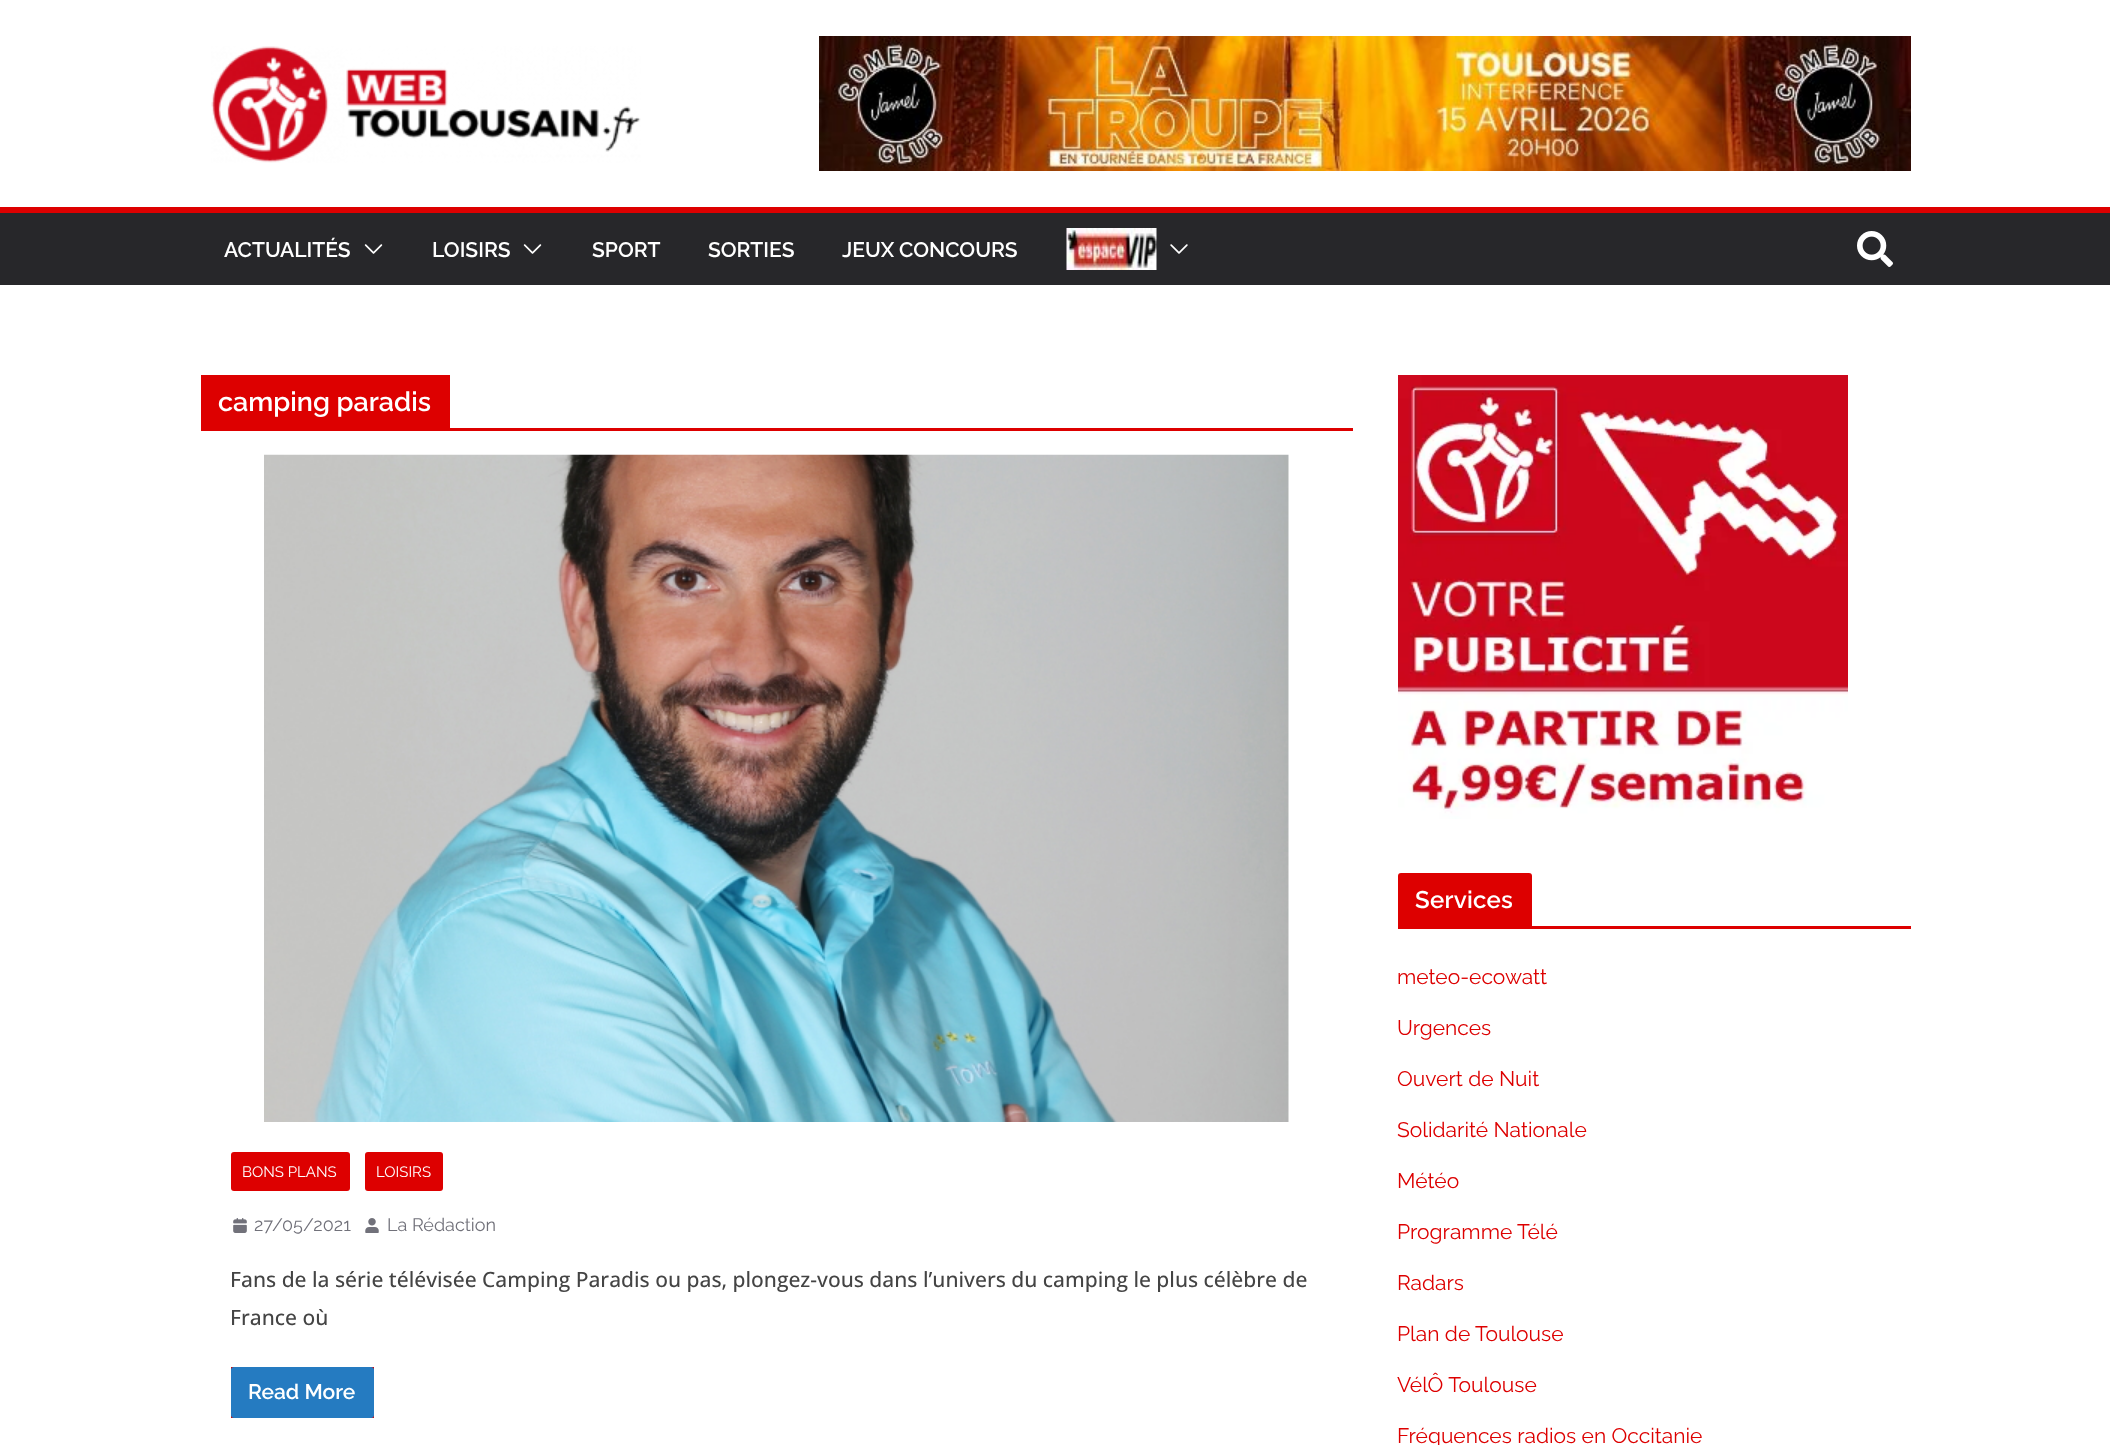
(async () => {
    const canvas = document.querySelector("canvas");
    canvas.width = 2110;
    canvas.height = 1445;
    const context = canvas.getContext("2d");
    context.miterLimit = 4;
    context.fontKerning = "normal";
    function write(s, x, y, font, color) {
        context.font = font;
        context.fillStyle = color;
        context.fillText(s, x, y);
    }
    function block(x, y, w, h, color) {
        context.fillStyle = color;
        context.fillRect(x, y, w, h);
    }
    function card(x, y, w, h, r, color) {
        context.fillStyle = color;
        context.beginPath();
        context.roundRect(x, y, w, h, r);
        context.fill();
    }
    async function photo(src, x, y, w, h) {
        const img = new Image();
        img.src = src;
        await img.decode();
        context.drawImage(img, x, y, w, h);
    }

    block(0, 0, 2110, 1445, "rgb(255, 255, 255)");
    await photo("media/1.png", 211, 46, 430, 117);
    await photo("media/2.png", 819, 36, 1092, 135);
    block(0, 213, 2110, 72, "rgb(39, 39, 42)");
    block(0, 207, 2110, 6, "rgb(221, 0, 0)");
    write("ACTUALITÉS", 224, 257, "600 21px Raleway", "rgb(255, 255, 255)");
    await photo("media/3.png", 364, 244, 19, 10);
    write("LOISIRS", 432, 257, "600 21px Raleway", "rgb(255, 255, 255)");
    await photo("media/3.png", 523, 244, 19, 10);
    write("SPORT", 592, 257, "600 21px Raleway", "rgb(255, 255, 255)");
    write("SORTIES", 708, 257, "600 21px Raleway", "rgb(255, 255, 255)");
    write("JEUX CONCOURS", 842, 257, "600 21px Raleway", "rgb(255, 255, 255)");
    await photo("media/4.png", 1066, 228, 91, 42);
    await photo("media/5.png", 1170, 244, 18, 10);
    await photo("media/6.png", 1857, 231, 36, 36);
    block(201, 428, 1152, 3, "rgb(221, 0, 0)");
    block(201, 375, 249, 53, "rgb(221, 0, 0)");
    write("camping paradis", 218, 411, "600 27px Raleway", "rgb(255, 255, 255)");
    await photo("media/7.png", 264, 454, 1025, 668);
    card(231, 1152, 119, 39, 3, "rgb(221, 0, 0)");
    write("BONS PLANS", 242, 1177, "15px Raleway", "rgb(255, 255, 255)");
    card(365, 1152, 78, 39, 3, "rgb(221, 0, 0)");
    write("LOISIRS", 376, 1177, "15px Raleway", "rgb(255, 255, 255)");
    await photo("media/8.png", 233, 1218, 14, 15);
    write("27/05/2021", 254, 1231, "18px Raleway", "rgb(113, 113, 122)");
    await photo("media/9.png", 365, 1218, 14, 15);
    write("La Rédaction", 387, 1231, "18px Raleway", "rgb(113, 113, 122)");
    write("Fans de la série télévisée Camping Paradis ou pas, plongez-vous dans l’univers du camping le plus célèbre de", 230, 1287, "500 21px Open Sans", "rgb(68, 68, 68)");
    write("France où", 230, 1325, "500 21px Open Sans", "rgb(68, 68, 68)");
    block(231, 1367, 143, 51, "rgb(221, 0, 0)");
    card(231, 1367, 143, 51, 3, "rgb(37, 123, 193)");
    write("Read More", 248, 1399, "600 21px Raleway", "rgb(255, 255, 255)");
    await photo("media/10.png", 1398, 375, 450, 444);
    block(1398, 926, 513, 3, "rgb(221, 0, 0)");
    context.beginPath();
    context.roundRect(1398, 873, 134, 53, [3, 3, 0, 0]);
    context.fill();
    context.letterSpacing = "0.25px";
    write("Services", 1415, 908, "600 24px Raleway", "rgb(255, 255, 255)");
    context.letterSpacing = "0px";
    write("meteo-ecowatt", 1397, 984, "21px Raleway", "rgb(221, 0, 0)");
    write("Urgences", 1397, 1035, "21px Raleway", "rgb(221, 0, 0)");
    write("Ouvert de Nuit", 1397, 1086, "21px Raleway", "rgb(221, 0, 0)");
    write("Solidarité Nationale", 1397, 1137, "21px Raleway", "rgb(221, 0, 0)");
    write("Météo", 1397, 1188, "21px Raleway", "rgb(221, 0, 0)");
    write("Programme Télé", 1397, 1239, "21px Raleway", "rgb(221, 0, 0)");
    write("Radars", 1397, 1290, "21px Raleway", "rgb(221, 0, 0)");
    write("Plan de Toulouse", 1397, 1341, "21px Raleway", "rgb(221, 0, 0)");
    write("VélÔ Toulouse", 1397, 1392, "21px Raleway", "rgb(221, 0, 0)");
    write("Fréquences radios en Occitanie", 1397, 1443, "21px Raleway", "rgb(221, 0, 0)");
})();
